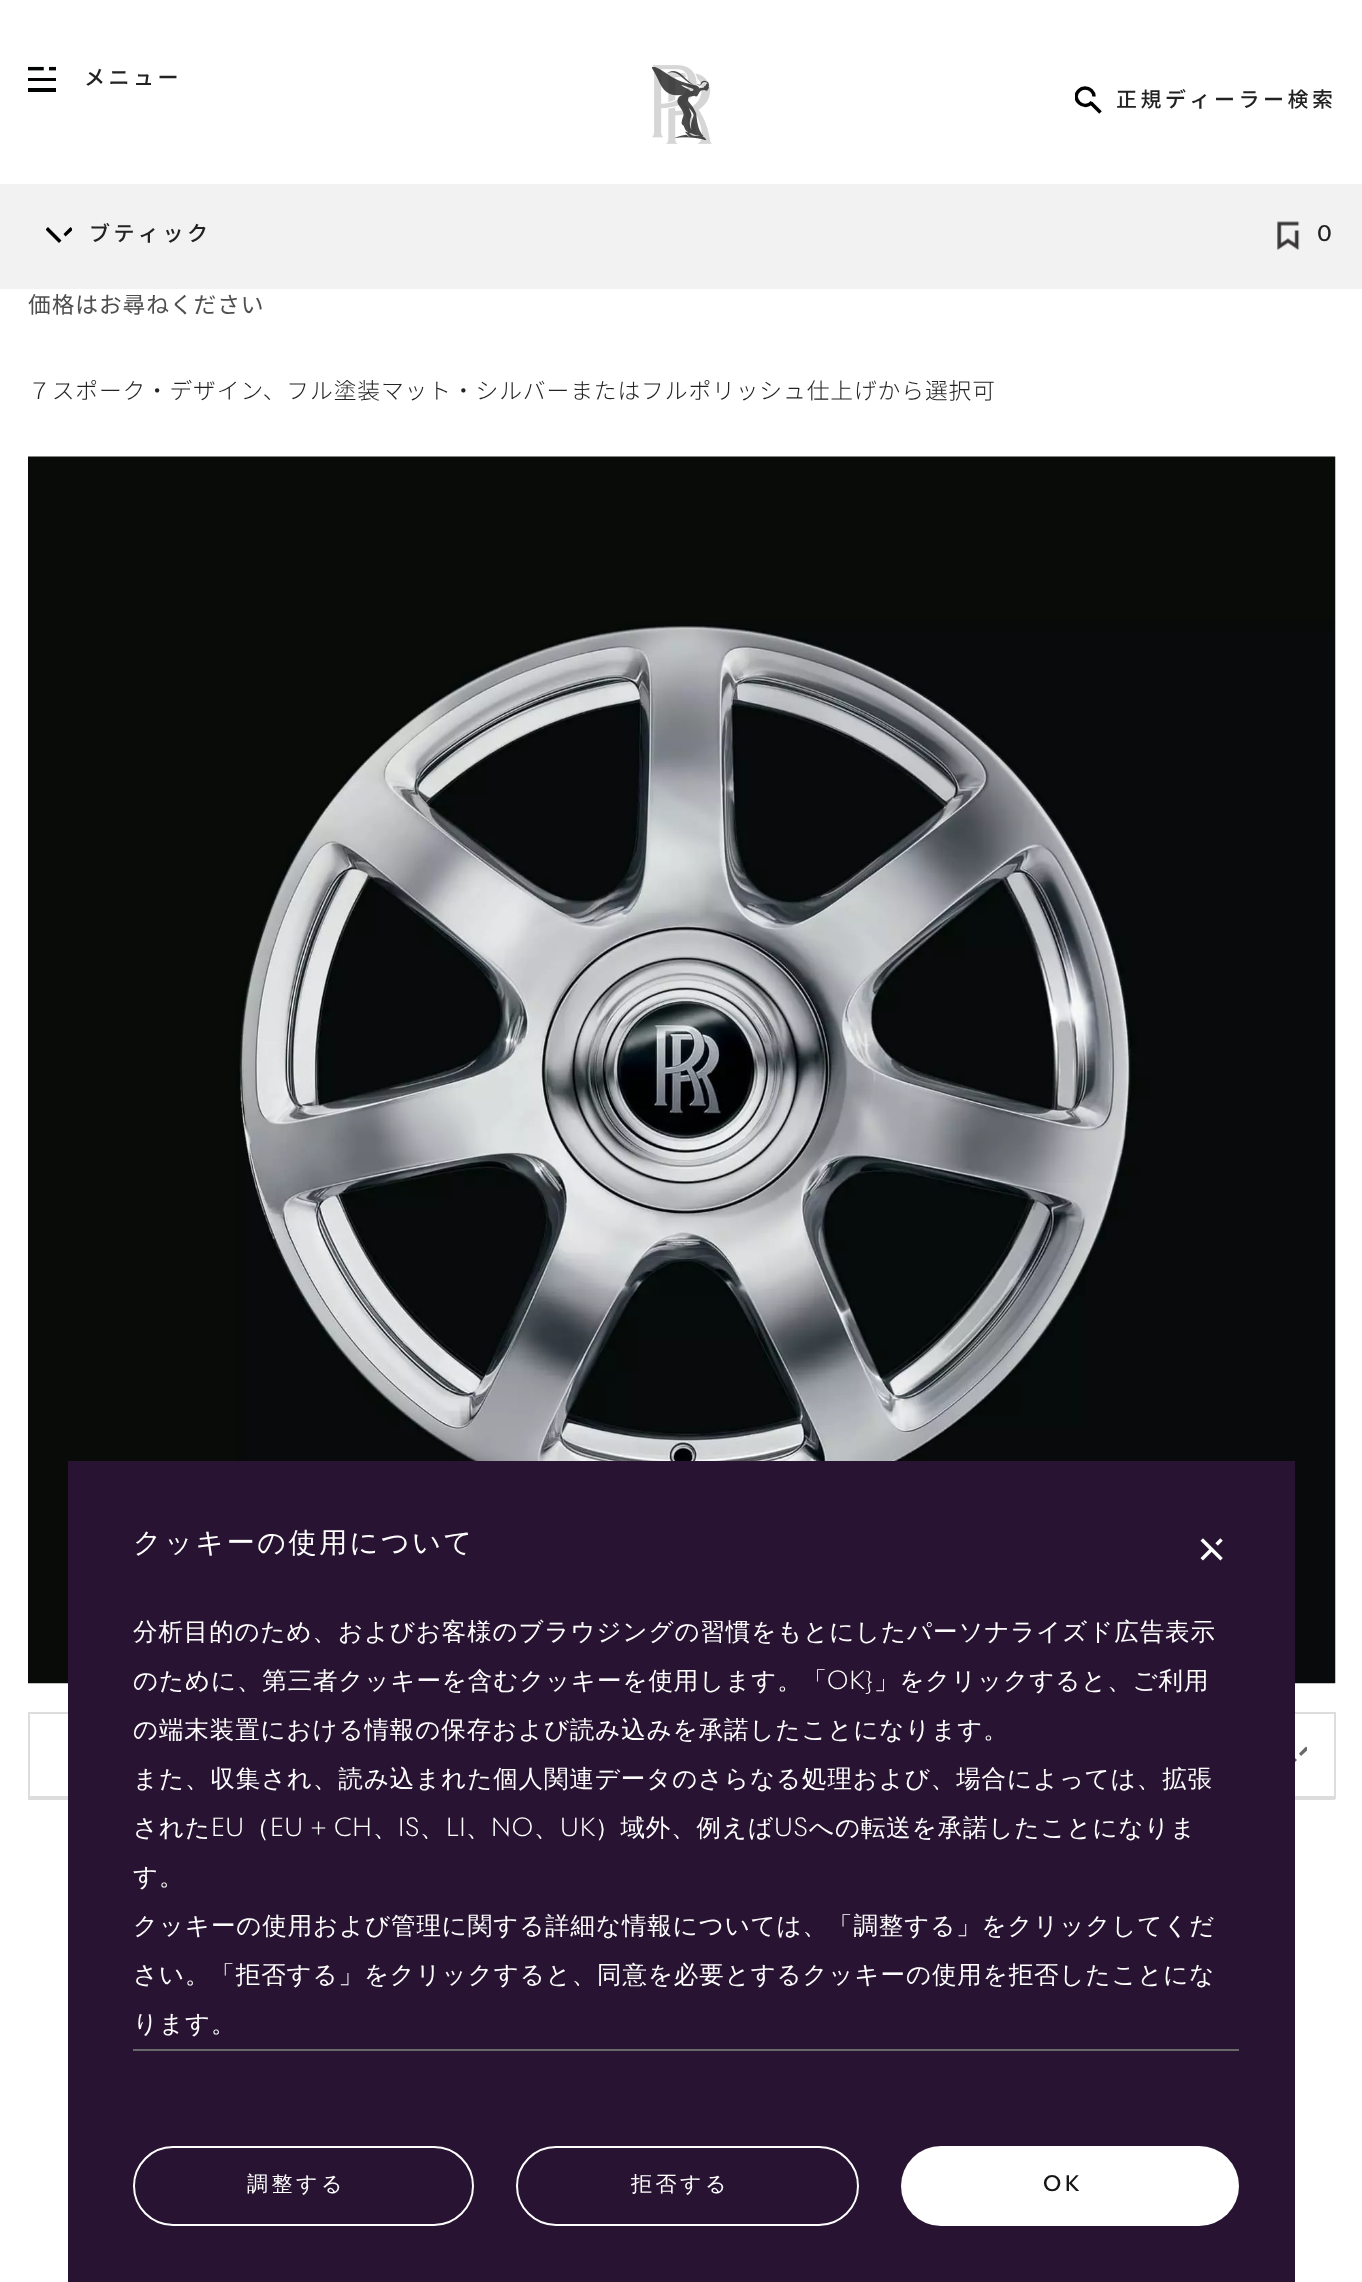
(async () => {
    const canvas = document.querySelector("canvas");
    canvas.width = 1362;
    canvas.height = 2282;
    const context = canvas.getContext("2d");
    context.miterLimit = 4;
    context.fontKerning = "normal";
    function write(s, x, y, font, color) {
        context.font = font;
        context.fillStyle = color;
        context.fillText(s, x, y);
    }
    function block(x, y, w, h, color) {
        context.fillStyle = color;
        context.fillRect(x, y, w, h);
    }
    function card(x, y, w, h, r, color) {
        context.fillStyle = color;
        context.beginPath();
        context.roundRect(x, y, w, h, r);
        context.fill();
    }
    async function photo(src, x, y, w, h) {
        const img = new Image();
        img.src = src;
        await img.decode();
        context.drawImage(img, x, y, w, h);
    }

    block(0, 0, 1362, 2282, "rgb(255, 255, 255)");
    await photo("media/1.png", 28, 66, 28, 26);
    context.letterSpacing = "3.5px";
    write("メニュー", 84, 85, "500 21px Noto Sans JP", "rgb(34, 34, 34)");
    await photo("media/2.png", 652, 65, 60, 79);
    await photo("media/3.png", 651, 67, 58, 73);
    context.beginPath();
    context.moveTo(1100.5, 112.5);
    context.lineTo(1091, 103);
    context.strokeStyle = "rgb(0, 0, 0)";
    context.lineWidth = 3.5;
    context.stroke();
    context.save();
    context.beginPath();
    context.rect(1075, 86, 28, 28);
    context.clip();
    context.beginPath();
    context.moveTo(1094, 96.5);
    context.bezierCurveTo(1094, 92, 1090, 88, 1085, 88);
    context.bezierCurveTo(1082.5, 88, 1080.5, 89, 1079, 90.5);
    context.bezierCurveTo(1070, 99, 1084.5, 111.5, 1092, 102);
    context.stroke();
    context.restore();
    write("正規ディーラー検索", 1116, 107, "500 21px Noto Sans JP", "rgb(34, 34, 34)");
    block(0, 184, 1362, 105, "rgb(242, 242, 242)");
    context.save();
    context.beginPath();
    context.rect(46, 222, 26, 27);
    context.clip();
    context.fillStyle = "rgb(0, 0, 0)";
    context.beginPath();
    context.moveTo(48, 227);
    context.lineTo(61.5, 240.5);
    context.lineTo(59, 243);
    context.lineTo(45.5, 229.5);
    context.closePath();
    context.moveTo(70.5, 227);
    context.lineTo(73, 229.5);
    context.lineTo(65.5, 236.5);
    context.lineTo(63.5, 234);
    context.closePath();
    context.fill("evenodd");
    context.restore();
    write("ブティック", 89, 241, "500 21px Noto Sans JP", "rgb(34, 34, 34)");
    await photo("media/4.png", 1277, 221, 23, 29);
    write("0", 1317, 241, "500 21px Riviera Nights", "rgb(34, 34, 34)");
    context.letterSpacing = "0.9px";
    write("価格はお尋ねください", 28, 313, "22.75px Noto Sans JP", "rgb(78, 78, 78)");
    write("７スポーク・デザイン、フル塗装マット・シルバーまたはフルポリッシュ仕上げから選択可", 28, 399, "300 22.75px Noto Sans JP", "rgb(34, 34, 34)");
    await photo("media/5.png", 28, 456, 1308, 1228);
    block(28, 1712, 1307, 2, "rgb(221, 221, 221)");
    block(1334, 1712, 2, 87, "rgb(221, 221, 221)");
    block(28, 1796, 1307, 4, "rgb(221, 221, 221)");
    block(28, 1712, 2, 87, "rgb(221, 221, 221)");
    context.save();
    context.beginPath();
    context.rect(1283, 1740, 24, 26);
    context.clip();
    context.fillStyle = "rgb(105, 105, 105)";
    context.beginPath();
    context.moveTo(1283.5, 1746.5);
    context.lineTo(1297, 1760);
    context.lineTo(1294.5, 1762.5);
    context.lineTo(1281, 1749);
    context.closePath();
    context.moveTo(1306, 1746.5);
    context.lineTo(1308.5, 1749);
    context.lineTo(1301, 1756);
    context.lineTo(1299, 1753.5);
    context.closePath();
    context.fill("evenodd");
    context.restore();
    block(68, 1461, 1227, 821, "rgb(40, 20, 50)");
    context.letterSpacing = "2.6px";
    write("クッキーの使用について", 133, 1552, "500 28px WenQuanYi Zen Hei", "rgb(255, 255, 255)");
    await photo("media/6.png", 1200, 1538, 23, 23);
    context.letterSpacing = "0.9px";
    write("分析目的のため、およびお客様のブラウジングの習慣をもとにしたパーソナライズド広告表示", 133, 1640, "500 24.5px WenQuanYi Zen Hei", "rgb(255, 255, 255)");
    write("のために、第三者クッキーを含むクッキーを使用します。「", 133, 1689, "500 24.5px WenQuanYi Zen Hei", "rgb(255, 255, 255)");
    write("OK}", 827, 1689, "300 24.5px Riviera Nights", "rgb(255, 255, 255)");
    write("」をクリックすると、ご利用", 874, 1689, "500 24.5px WenQuanYi Zen Hei", "rgb(255, 255, 255)");
    write("の端末装置における情報の保存および読み込みを承諾したことになります。", 133, 1738, "500 24.5px WenQuanYi Zen Hei", "rgb(255, 255, 255)");
    write("また、収集され、読み込まれた個人関連データのさらなる処理および、場合によっては、拡張", 133, 1787, "500 24.5px WenQuanYi Zen Hei", "rgb(255, 255, 255)");
    write("された", 133, 1836, "500 24.5px WenQuanYi Zen Hei", "rgb(255, 255, 255)");
    write("EU", 211, 1836, "300 24.5px Riviera Nights", "rgb(255, 255, 255)");
    write("（", 245, 1836, "500 24.5px WenQuanYi Zen Hei", "rgb(255, 255, 255)");
    write("EU + CH", 270, 1836, "300 24.5px Riviera Nights", "rgb(255, 255, 255)");
    write("、", 373, 1836, "500 24.5px WenQuanYi Zen Hei", "rgb(255, 255, 255)");
    write("IS", 398, 1836, "300 24.5px Riviera Nights", "rgb(255, 255, 255)");
    write("、", 420, 1836, "500 24.5px WenQuanYi Zen Hei", "rgb(255, 255, 255)");
    write("LI", 446, 1836, "300 24.5px Riviera Nights", "rgb(255, 255, 255)");
    write("、", 466, 1836, "500 24.5px WenQuanYi Zen Hei", "rgb(255, 255, 255)");
    write("NO", 491, 1836, "300 24.5px Riviera Nights", "rgb(255, 255, 255)");
    write("、", 534, 1836, "500 24.5px WenQuanYi Zen Hei", "rgb(255, 255, 255)");
    write("UK", 560, 1836, "300 24.5px Riviera Nights", "rgb(255, 255, 255)");
    write("）域外、例えば", 595, 1836, "500 24.5px WenQuanYi Zen Hei", "rgb(255, 255, 255)");
    write("US", 774, 1836, "300 24.5px Riviera Nights", "rgb(255, 255, 255)");
    write("への転送を承諾したことになりま", 809, 1836, "500 24.5px WenQuanYi Zen Hei", "rgb(255, 255, 255)");
    write("す。", 133, 1885, "500 24.5px WenQuanYi Zen Hei", "rgb(255, 255, 255)");
    write("クッキーの使用および管理に関する詳細な情報については、「調整する」をクリックしてくだ", 133, 1934, "500 24.5px WenQuanYi Zen Hei", "rgb(255, 255, 255)");
    write("さい。「拒否する」をクリックすると、同意を必要とするクッキーの使用を拒否したことにな", 133, 1983, "500 24.5px WenQuanYi Zen Hei", "rgb(255, 255, 255)");
    write("ります。", 133, 2032, "500 24.5px WenQuanYi Zen Hei", "rgb(255, 255, 255)");
    block(133, 2049, 1106, 2, "rgb(105, 105, 105)");
    context.beginPath();
    context.roundRect(134, 2147, 339, 78, 39);
    context.strokeStyle = "rgb(255, 255, 255)";
    context.lineWidth = 2;
    context.stroke();
    context.letterSpacing = "3.5px";
    write("調整する", 247, 2191, "500 21px WenQuanYi Zen Hei", "rgb(255, 255, 255)");
    context.beginPath();
    context.roundRect(517, 2147, 341, 78, 39);
    context.stroke();
    write("拒否する", 631, 2191, "500 21px WenQuanYi Zen Hei", "rgb(255, 255, 255)");
    card(901, 2146, 338, 80, 40, "rgb(255, 255, 255)");
    write("OK", 1043, 2191, "500 21px Riviera Nights", "rgb(21, 21, 21)");
})();
